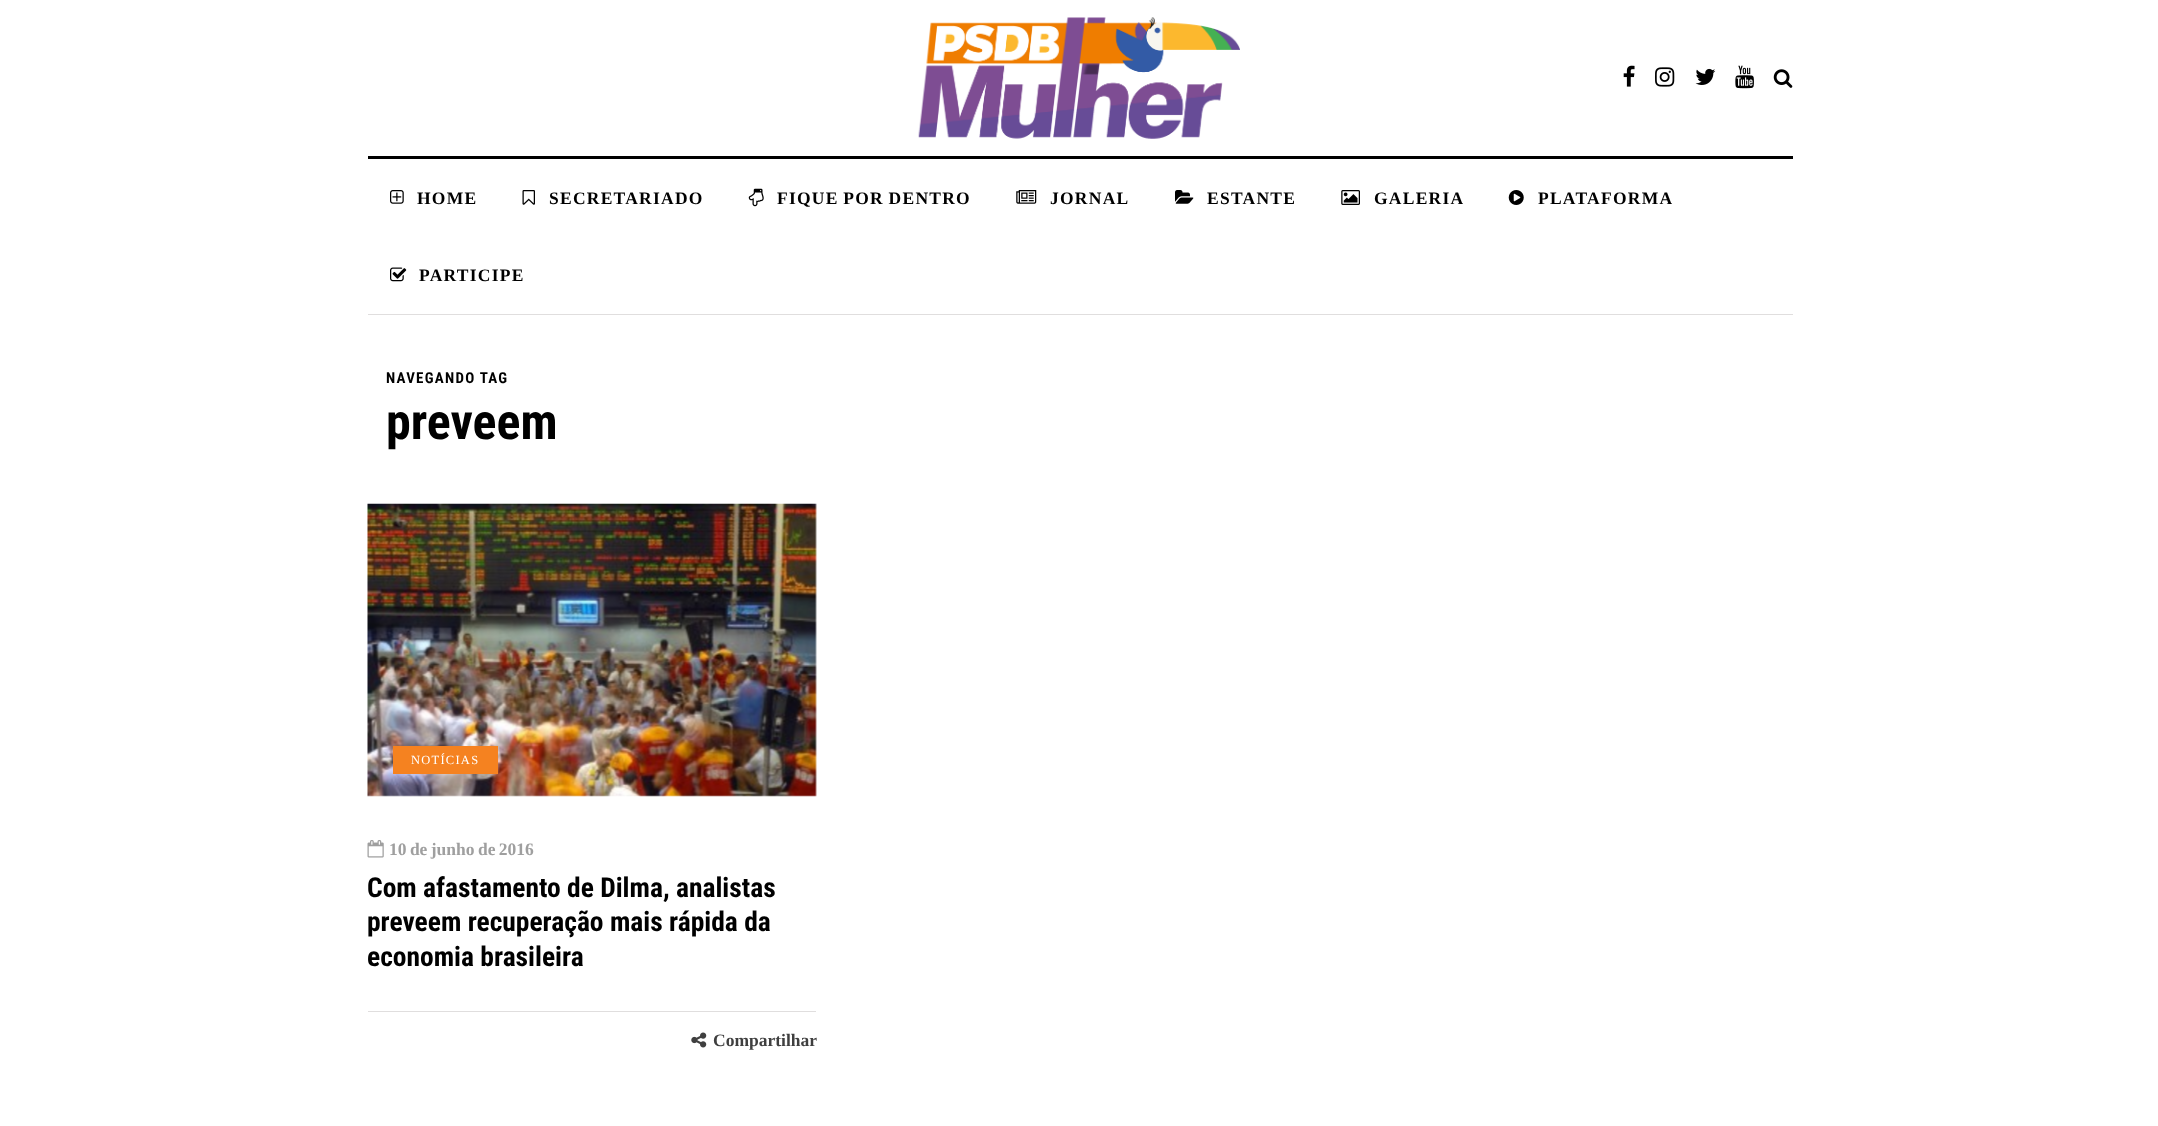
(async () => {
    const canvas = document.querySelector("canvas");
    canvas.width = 2158;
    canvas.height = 1126;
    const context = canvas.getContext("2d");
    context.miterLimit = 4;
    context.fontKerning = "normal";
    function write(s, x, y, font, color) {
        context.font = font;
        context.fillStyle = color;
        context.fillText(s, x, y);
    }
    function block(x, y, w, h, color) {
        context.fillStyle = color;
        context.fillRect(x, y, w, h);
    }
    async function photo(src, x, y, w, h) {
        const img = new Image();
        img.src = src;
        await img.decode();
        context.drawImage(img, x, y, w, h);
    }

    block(0, 0, 2158, 1126, "rgb(255, 255, 255)");
    await photo("media/1.png", 918, 17, 322, 122);
    await photo("media/2.png", 1623, 65, 12, 22);
    await photo("media/3.png", 1655, 67, 20, 20);
    await photo("media/4.png", 1695, 68, 21, 17);
    await photo("media/5.png", 1735, 65, 19, 24);
    await photo("media/6.png", 1773, 69, 20, 19);
    block(368, 156, 1425, 3, "rgb(0, 0, 0)");
    block(368, 314, 1425, 1, "rgb(224, 222, 222)");
    await photo("media/7.png", 390, 190, 14, 14);
    context.letterSpacing = "1.25px";
    write("HOME", 417, 204, "bold 17.5px Liberation Serif", "rgb(0, 0, 0)");
    await photo("media/8.png", 522, 190, 13, 15);
    write("SECRETARIADO", 549, 204, "bold 17.5px Liberation Serif", "rgb(0, 0, 0)");
    await photo("media/9.png", 748, 188, 16, 19);
    context.wordSpacing = "-1px";
    write("FIQUE POR DENTRO", 777, 204, "bold 17.5px Liberation Serif", "rgb(0, 0, 0)");
    await photo("media/10.png", 1016, 190, 21, 14);
    context.wordSpacing = "0px";
    write("JORNAL", 1050, 204, "bold 17.5px Liberation Serif", "rgb(0, 0, 0)");
    await photo("media/11.png", 1175, 190, 19, 14);
    write("ESTANTE", 1207, 204, "bold 17.5px Liberation Serif", "rgb(0, 0, 0)");
    await photo("media/12.png", 1341, 190, 19, 15);
    write("GALERIA", 1374, 204, "bold 17.5px Liberation Serif", "rgb(0, 0, 0)");
    await photo("media/13.png", 1508, 190, 16, 15);
    write("PLATAFORMA", 1538, 204, "bold 17.5px Liberation Serif", "rgb(0, 0, 0)");
    await photo("media/14.png", 390, 267, 17, 15);
    write("PARTICIPE", 419, 281, "bold 17.5px Liberation Serif", "rgb(0, 0, 0)");
    write("NAVEGANDO TAG", 386, 383, "bold 15px Roboto Condensed", "rgb(0, 0, 0)");
    context.letterSpacing = "0px";
    write("preveem", 386, 439, "bold 50px Roboto Condensed", "rgb(0, 0, 0)");
    block(368, 504, 448, 292, "rgb(245, 245, 245)");
    await photo("media/15.png", 367, 503, 450, 294);
    block(393, 746, 105, 28, "rgb(245, 130, 32)");
    context.letterSpacing = "1.25px";
    write("NOTÍCIAS", 411, 764, "12.5px Liberation Serif", "rgb(255, 255, 255)");
    await photo("media/16.png", 367, 840, 17, 18);
    context.letterSpacing = "0px";
    context.wordSpacing = "-1px";
    write("10 de junho de 2016", 389, 855, "bold 17.5px Liberation Serif", "rgb(159, 159, 159)");
    context.wordSpacing = "0px";
    write("Com afastamento de Dilma, analistas", 367, 897, "bold 27.5px Roboto Condensed", "rgb(0, 0, 0)");
    write("preveem recuperação mais rápida da", 367, 931, "bold 27.5px Roboto Condensed", "rgb(0, 0, 0)");
    write("economia brasileira", 367, 966, "bold 27.5px Roboto Condensed", "rgb(0, 0, 0)");
    block(368, 1011, 448, 1, "rgb(224, 222, 222)");
    await photo("media/17.png", 691, 1032, 16, 16);
    write("Compartilhar", 713, 1046, "bold 17.5px Liberation Serif", "rgb(63, 63, 63)");
})();
